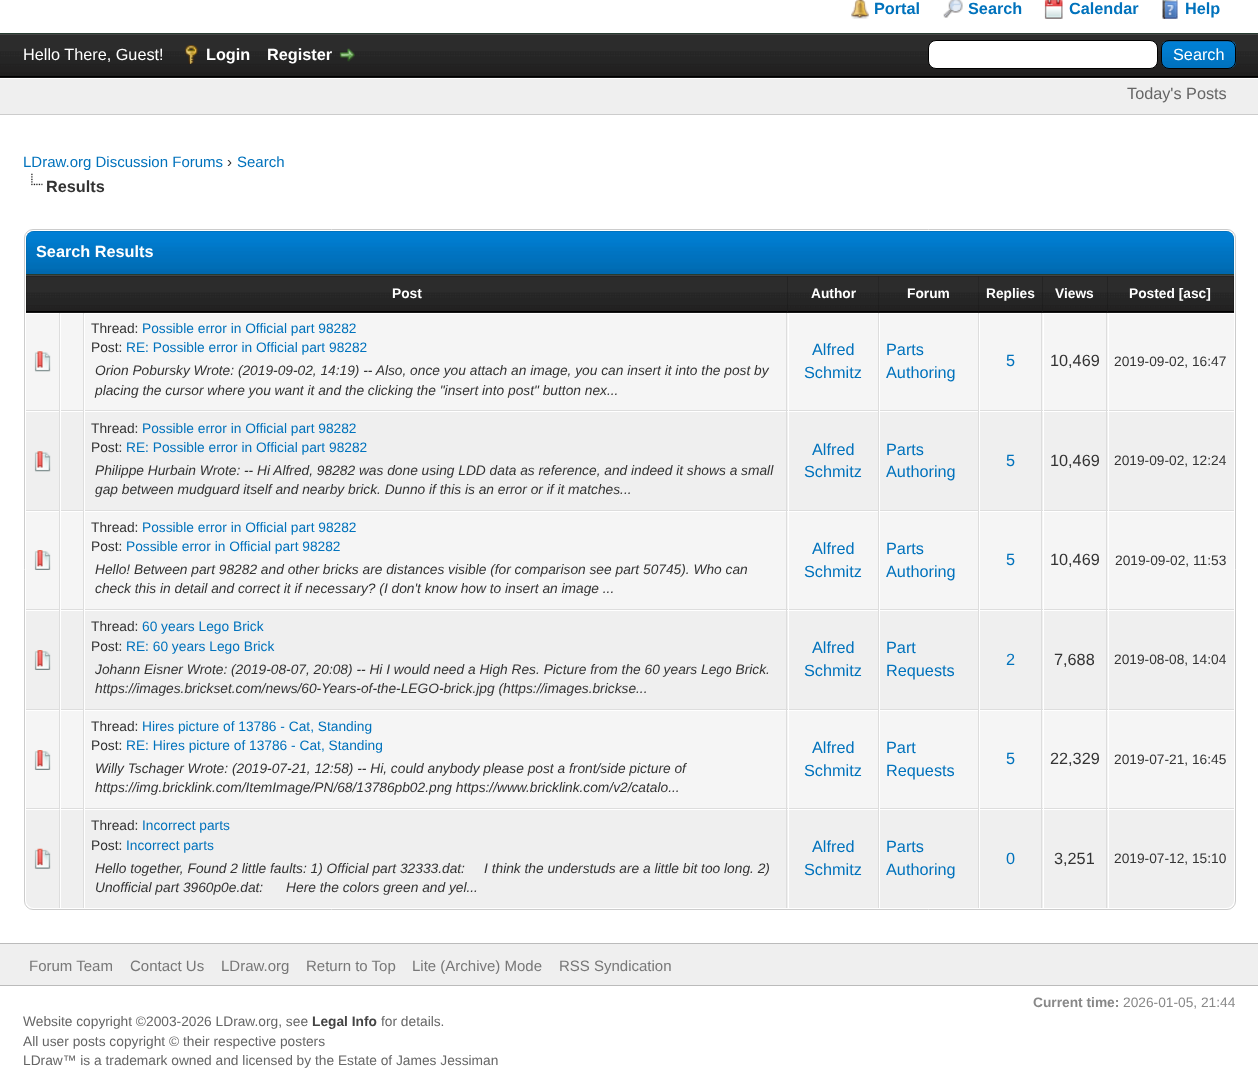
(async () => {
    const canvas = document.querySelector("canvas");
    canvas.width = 1258;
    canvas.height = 1069;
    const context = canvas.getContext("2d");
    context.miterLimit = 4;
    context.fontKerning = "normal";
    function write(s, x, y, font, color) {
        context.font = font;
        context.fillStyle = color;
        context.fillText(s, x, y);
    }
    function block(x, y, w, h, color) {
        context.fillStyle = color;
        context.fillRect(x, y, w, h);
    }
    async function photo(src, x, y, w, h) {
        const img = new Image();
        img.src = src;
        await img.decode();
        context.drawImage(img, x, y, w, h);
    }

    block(0, 0, 1258, 1069, "rgb(255, 255, 255)");
    block(0, 33, 1258, 1, "rgb(38, 60, 48)");
    await photo("media/1.png", 851, 0, 18, 19);
    write("Portal", 874, 14, "bold 16.25px Liberation Sans", "rgb(0, 114, 188)");
    await photo("media/2.png", 943, 0, 20, 18);
    write("Search", 968, 14, "bold 16.25px Liberation Sans", "rgb(0, 114, 188)");
    await photo("media/3.png", 1044, 0, 19, 19);
    write("Calendar", 1069, 14, "bold 16.25px Liberation Sans", "rgb(0, 114, 188)");
    await photo("media/4.png", 1162, 0, 16, 19);
    write("Help", 1185, 14, "bold 16.25px Liberation Sans", "rgb(0, 114, 188)");
    block(0, 77, 1258, 1, "rgb(15, 15, 15)");
    await photo("media/5.png", 0, 35, 1258, 43);
    block(0, 34, 1258, 1, "rgb(68, 68, 68)");
    block(0, 76, 1258, 1, "rgb(0, 0, 0)");
    write("Hello There, Guest!", 23, 60, "16.25px Liberation Sans", "rgb(255, 255, 255)");
    await photo("media/6.png", 185, 45, 13, 19);
    write("Login", 206, 60, "bold 16.25px Liberation Sans", "rgb(255, 255, 255)");
    write("Register", 267, 60, "bold 16.25px Liberation Sans", "rgb(255, 255, 255)");
    await photo("media/7.png", 339, 48, 16, 14);
    context.beginPath();
    context.roundRect(928.5, 40.5, 229, 28, 7.5);
    context.fill();
    context.strokeStyle = "rgb(0, 0, 0)";
    context.stroke();
    await photo("media/8.png", 1161, 41, 76, 28);
    context.beginPath();
    context.roundRect(1161.5, 40.5, 74, 28, 7.5);
    context.stroke();
    write("Search", 1173, 60, "16.25px Liberation Sans", "rgb(255, 255, 255)");
    block(0, 79, 1258, 35, "rgb(239, 239, 239)");
    block(0, 114, 1258, 1, "rgb(204, 204, 204)");
    write("Today's Posts", 1127, 99, "16.25px Liberation Sans", "rgb(102, 102, 102)");
    write("LDraw.org Discussion Forums", 23, 167, "15px Liberation Sans", "rgb(0, 114, 188)");
    write("›", 227, 167, "15px Liberation Sans", "rgb(51, 51, 51)");
    write("Search", 237, 167, "15px Liberation Sans", "rgb(0, 114, 188)");
    await photo("media/9.png", 31, 173, 12, 13);
    write("Results", 46, 192, "bold 16.25px Liberation Sans", "rgb(51, 51, 51)");
    context.beginPath();
    context.roundRect(24.5, 229.5, 1211, 680, 8.5);
    context.strokeStyle = "rgb(204, 204, 204)";
    context.stroke();
    context.fillStyle = "rgb(0, 102, 162)";
    context.beginPath();
    context.roundRect(26, 231, 1208, 44, [8, 8, 0, 0]);
    context.fill();
    await photo("media/10.png", 26, 231, 1208, 43);
    block(26, 274, 1208, 1, "rgb(38, 60, 48)");
    write("Search Results", 36, 257, "bold 16.25px Liberation Sans", "rgb(255, 255, 255)");
    block(26, 276, 1208, 37, "rgb(15, 15, 15)");
    await photo("media/11.png", 26, 276, 762, 37);
    block(26, 275, 1208, 1, "rgb(68, 68, 68)");
    block(26, 311, 762, 1, "rgb(0, 0, 0)");
    write("Post", 392, 298, "bold 13.75px Liberation Sans", "rgb(255, 255, 255)");
    await photo("media/12.png", 787, 276, 92, 37);
    block(788, 311, 91, 1, "rgb(0, 0, 0)");
    write("Author", 811, 298, "bold 13.75px Liberation Sans", "rgb(255, 255, 255)");
    await photo("media/13.png", 878, 276, 101, 37);
    block(879, 311, 100, 1, "rgb(0, 0, 0)");
    write("Forum", 907, 298, "bold 13.75px Liberation Sans", "rgb(255, 255, 255)");
    await photo("media/14.png", 978, 276, 65, 37);
    block(979, 311, 64, 1, "rgb(0, 0, 0)");
    write("Replies", 986, 298, "bold 13.75px Liberation Sans", "rgb(255, 255, 255)");
    await photo("media/15.png", 1042, 276, 66, 37);
    block(1043, 311, 65, 1, "rgb(0, 0, 0)");
    write("Views", 1055, 298, "bold 13.75px Liberation Sans", "rgb(255, 255, 255)");
    await photo("media/16.png", 1107, 276, 127, 37);
    block(1108, 311, 126, 1, "rgb(0, 0, 0)");
    write("Posted [asc]", 1129, 298, "bold 13.75px Liberation Sans", "rgb(255, 255, 255)");
    block(26, 314, 33, 96, "rgb(245, 245, 245)");
    block(59, 313, 1, 496, "rgb(221, 221, 221)");
    block(26, 410, 34, 1, "rgb(221, 221, 221)");
    await photo("media/17.png", 34, 351, 17, 21);
    block(61, 314, 22, 96, "rgb(245, 245, 245)");
    block(83, 313, 1, 595, "rgb(221, 221, 221)");
    block(60, 410, 24, 1, "rgb(221, 221, 221)");
    block(60, 410, 1, 1, "rgb(255, 255, 255)");
    block(85, 314, 703, 96, "rgb(245, 245, 245)");
    block(786, 313, 1, 98, "rgb(221, 221, 221)");
    block(84, 410, 704, 1, "rgb(221, 221, 221)");
    block(84, 410, 1, 1, "rgb(255, 255, 255)");
    write("Thread:", 91, 333, "13.75px Liberation Sans", "rgb(51, 51, 51)");
    write("Possible error in Official part 98282", 142, 333, "13.75px Liberation Sans", "rgb(0, 114, 188)");
    write("Post:", 91, 352, "13.75px Liberation Sans", "rgb(51, 51, 51)");
    write("RE: Possible error in Official part 98282", 126, 352, "13.75px Liberation Sans", "rgb(0, 114, 188)");
    write("Orion Pobursky Wrote: (2019-09-02, 14:19) -- Also, once you attach an image, you can insert it into the post by", 95, 375, "italic 13.75px Liberation Sans", "rgb(51, 51, 51)");
    write("placing the cursor where you want it and the clicking the \"insert into post\" button nex...", 95, 395, "italic 13.75px Liberation Sans", "rgb(51, 51, 51)");
    block(789, 314, 89, 96, "rgb(245, 245, 245)");
    block(878, 313, 1, 595, "rgb(221, 221, 221)");
    block(788, 410, 91, 1, "rgb(221, 221, 221)");
    block(788, 410, 1, 1, "rgb(255, 255, 255)");
    write("Alfred", 812, 355, "16.25px Liberation Sans", "rgb(0, 114, 188)");
    write("Schmitz", 804, 378, "16.25px Liberation Sans", "rgb(0, 114, 188)");
    block(880, 314, 98, 96, "rgb(245, 245, 245)");
    block(978, 313, 1, 595, "rgb(221, 221, 221)");
    block(879, 410, 100, 1, "rgb(221, 221, 221)");
    block(879, 410, 1, 1, "rgb(255, 255, 255)");
    write("Parts", 886, 355, "16.25px Liberation Sans", "rgb(0, 114, 188)");
    write("Authoring", 886, 378, "16.25px Liberation Sans", "rgb(0, 114, 188)");
    block(980, 314, 63, 96, "rgb(245, 245, 245)");
    block(1041, 313, 1, 98, "rgb(221, 221, 221)");
    block(979, 410, 64, 1, "rgb(221, 221, 221)");
    block(979, 410, 1, 1, "rgb(255, 255, 255)");
    write("5", 1006, 366, "16.25px Liberation Sans", "rgb(0, 114, 188)");
    block(1044, 314, 64, 96, "rgb(245, 245, 245)");
    block(1106, 313, 1, 98, "rgb(221, 221, 221)");
    block(1043, 410, 191, 1, "rgb(221, 221, 221)");
    block(1043, 410, 1, 1, "rgb(255, 255, 255)");
    write("10,469", 1050, 366, "16.25px Liberation Sans", "rgb(51, 51, 51)");
    block(1109, 314, 125, 96, "rgb(245, 245, 245)");
    block(1108, 410, 1, 1, "rgb(255, 255, 255)");
    write("2019-09-02, 16:47", 1114, 366, "13.75px Liberation Sans", "rgb(51, 51, 51)");
    block(26, 412, 33, 98, "rgb(239, 239, 239)");
    block(26, 510, 58, 1, "rgb(221, 221, 221)");
    await photo("media/18.png", 34, 451, 17, 21);
    block(61, 412, 22, 98, "rgb(239, 239, 239)");
    block(60, 510, 1, 1, "rgb(255, 255, 255)");
    block(85, 412, 703, 98, "rgb(239, 239, 239)");
    block(786, 411, 1, 100, "rgb(221, 221, 221)");
    block(84, 510, 895, 1, "rgb(221, 221, 221)");
    block(84, 510, 1, 1, "rgb(255, 255, 255)");
    write("Thread:", 91, 433, "13.75px Liberation Sans", "rgb(51, 51, 51)");
    write("Possible error in Official part 98282", 142, 433, "13.75px Liberation Sans", "rgb(0, 114, 188)");
    write("Post:", 91, 452, "13.75px Liberation Sans", "rgb(51, 51, 51)");
    write("RE: Possible error in Official part 98282", 126, 452, "13.75px Liberation Sans", "rgb(0, 114, 188)");
    write("Philippe Hurbain Wrote: -- Hi Alfred, 98282 was done using LDD data as reference, and indeed it shows a small", 95, 475, "italic 13.75px Liberation Sans", "rgb(51, 51, 51)");
    write("gap between mudguard itself and nearby brick. Dunno if this is an error or if it matches...", 95, 494, "italic 13.75px Liberation Sans", "rgb(51, 51, 51)");
    block(789, 412, 89, 98, "rgb(239, 239, 239)");
    block(788, 510, 1, 1, "rgb(255, 255, 255)");
    write("Alfred", 812, 455, "16.25px Liberation Sans", "rgb(0, 114, 188)");
    write("Schmitz", 804, 477, "16.25px Liberation Sans", "rgb(0, 114, 188)");
    block(880, 412, 98, 98, "rgb(239, 239, 239)");
    block(879, 510, 1, 1, "rgb(255, 255, 255)");
    write("Parts", 886, 455, "16.25px Liberation Sans", "rgb(0, 114, 188)");
    write("Authoring", 886, 477, "16.25px Liberation Sans", "rgb(0, 114, 188)");
    block(980, 412, 63, 98, "rgb(239, 239, 239)");
    block(1041, 411, 1, 100, "rgb(221, 221, 221)");
    block(979, 510, 64, 1, "rgb(221, 221, 221)");
    block(979, 510, 1, 1, "rgb(255, 255, 255)");
    write("5", 1006, 466, "16.25px Liberation Sans", "rgb(0, 114, 188)");
    block(1044, 412, 64, 98, "rgb(239, 239, 239)");
    block(1106, 411, 1, 100, "rgb(221, 221, 221)");
    block(1043, 510, 191, 1, "rgb(221, 221, 221)");
    block(1043, 510, 1, 1, "rgb(255, 255, 255)");
    write("10,469", 1050, 466, "16.25px Liberation Sans", "rgb(51, 51, 51)");
    block(1109, 412, 125, 98, "rgb(239, 239, 239)");
    block(1108, 510, 1, 1, "rgb(255, 255, 255)");
    write("2019-09-02, 12:24", 1114, 465, "13.75px Liberation Sans", "rgb(51, 51, 51)");
    block(26, 512, 33, 97, "rgb(245, 245, 245)");
    block(26, 609, 58, 1, "rgb(221, 221, 221)");
    await photo("media/19.png", 34, 550, 17, 20);
    block(61, 512, 22, 97, "rgb(245, 245, 245)");
    block(60, 609, 1, 1, "rgb(255, 255, 255)");
    block(85, 512, 703, 97, "rgb(245, 245, 245)");
    block(786, 511, 1, 99, "rgb(221, 221, 221)");
    block(84, 609, 895, 1, "rgb(221, 221, 221)");
    block(84, 609, 1, 1, "rgb(255, 255, 255)");
    write("Thread:", 91, 532, "13.75px Liberation Sans", "rgb(51, 51, 51)");
    write("Possible error in Official part 98282", 142, 532, "13.75px Liberation Sans", "rgb(0, 114, 188)");
    write("Post:", 91, 551, "13.75px Liberation Sans", "rgb(51, 51, 51)");
    write("Possible error in Official part 98282", 126, 551, "13.75px Liberation Sans", "rgb(0, 114, 188)");
    write("Hello! Between part 98282 and other bricks are distances visible (for comparison see part 50745). Who can", 95, 574, "italic 13.75px Liberation Sans", "rgb(51, 51, 51)");
    write("check this in detail and correct it if necessary? (I don't know how to insert an image ...", 95, 593, "italic 13.75px Liberation Sans", "rgb(51, 51, 51)");
    block(789, 512, 89, 97, "rgb(245, 245, 245)");
    block(788, 609, 1, 1, "rgb(255, 255, 255)");
    write("Alfred", 812, 554, "16.25px Liberation Sans", "rgb(0, 114, 188)");
    write("Schmitz", 804, 577, "16.25px Liberation Sans", "rgb(0, 114, 188)");
    block(880, 512, 98, 97, "rgb(245, 245, 245)");
    block(879, 609, 1, 1, "rgb(255, 255, 255)");
    write("Parts", 886, 554, "16.25px Liberation Sans", "rgb(0, 114, 188)");
    write("Authoring", 886, 577, "16.25px Liberation Sans", "rgb(0, 114, 188)");
    block(980, 512, 63, 97, "rgb(245, 245, 245)");
    block(1041, 511, 1, 99, "rgb(221, 221, 221)");
    block(979, 609, 64, 1, "rgb(221, 221, 221)");
    block(979, 609, 1, 1, "rgb(255, 255, 255)");
    write("5", 1006, 565, "16.25px Liberation Sans", "rgb(0, 114, 188)");
    block(1044, 512, 64, 97, "rgb(245, 245, 245)");
    block(1106, 511, 1, 99, "rgb(221, 221, 221)");
    block(1043, 609, 191, 1, "rgb(221, 221, 221)");
    block(1043, 609, 1, 1, "rgb(255, 255, 255)");
    write("10,469", 1050, 565, "16.25px Liberation Sans", "rgb(51, 51, 51)");
    block(1109, 512, 125, 97, "rgb(245, 245, 245)");
    block(1108, 609, 1, 1, "rgb(255, 255, 255)");
    write("2019-09-02, 11:53", 1115, 565, "13.75px Liberation Sans", "rgb(51, 51, 51)");
    block(26, 611, 33, 98, "rgb(239, 239, 239)");
    block(26, 709, 58, 1, "rgb(221, 221, 221)");
    await photo("media/20.png", 34, 650, 17, 20);
    block(61, 611, 22, 98, "rgb(239, 239, 239)");
    block(60, 709, 1, 1, "rgb(255, 255, 255)");
    block(85, 611, 703, 98, "rgb(239, 239, 239)");
    block(786, 610, 1, 100, "rgb(221, 221, 221)");
    block(84, 709, 895, 1, "rgb(221, 221, 221)");
    block(84, 709, 1, 1, "rgb(255, 255, 255)");
    write("Thread:", 91, 631, "13.75px Liberation Sans", "rgb(51, 51, 51)");
    write("60 years Lego Brick", 142, 631, "13.75px Liberation Sans", "rgb(0, 114, 188)");
    write("Post:", 91, 651, "13.75px Liberation Sans", "rgb(51, 51, 51)");
    write("RE: 60 years Lego Brick", 126, 651, "13.75px Liberation Sans", "rgb(0, 114, 188)");
    write("Johann Eisner Wrote: (2019-08-07, 20:08) -- Hi I would need a High Res. Picture from the 60 years Lego Brick.", 95, 674, "italic 13.75px Liberation Sans", "rgb(51, 51, 51)");
    write("https://images.brickset.com/news/60-Years-of-the-LEGO-brick.jpg (https://images.brickse...", 95, 693, "italic 13.75px Liberation Sans", "rgb(51, 51, 51)");
    block(789, 611, 89, 98, "rgb(239, 239, 239)");
    block(788, 709, 1, 1, "rgb(255, 255, 255)");
    write("Alfred", 812, 653, "16.25px Liberation Sans", "rgb(0, 114, 188)");
    write("Schmitz", 804, 676, "16.25px Liberation Sans", "rgb(0, 114, 188)");
    block(880, 611, 98, 98, "rgb(239, 239, 239)");
    block(879, 709, 1, 1, "rgb(255, 255, 255)");
    write("Part", 886, 653, "16.25px Liberation Sans", "rgb(0, 114, 188)");
    write("Requests", 886, 676, "16.25px Liberation Sans", "rgb(0, 114, 188)");
    block(980, 611, 63, 98, "rgb(239, 239, 239)");
    block(1041, 610, 1, 100, "rgb(221, 221, 221)");
    block(979, 709, 64, 1, "rgb(221, 221, 221)");
    block(979, 709, 1, 1, "rgb(255, 255, 255)");
    write("2", 1006, 665, "16.25px Liberation Sans", "rgb(0, 114, 188)");
    block(1044, 611, 64, 98, "rgb(239, 239, 239)");
    block(1106, 610, 1, 100, "rgb(221, 221, 221)");
    block(1043, 709, 191, 1, "rgb(221, 221, 221)");
    block(1043, 709, 1, 1, "rgb(255, 255, 255)");
    write("7,688", 1054, 665, "16.25px Liberation Sans", "rgb(51, 51, 51)");
    block(1109, 611, 125, 98, "rgb(239, 239, 239)");
    block(1108, 709, 1, 1, "rgb(255, 255, 255)");
    write("2019-08-08, 14:04", 1114, 664, "13.75px Liberation Sans", "rgb(51, 51, 51)");
    block(26, 711, 33, 97, "rgb(245, 245, 245)");
    block(26, 808, 58, 1, "rgb(221, 221, 221)");
    await photo("media/19.png", 34, 750, 17, 20);
    block(61, 711, 22, 97, "rgb(245, 245, 245)");
    block(60, 808, 1, 1, "rgb(255, 255, 255)");
    block(85, 711, 703, 97, "rgb(245, 245, 245)");
    block(786, 710, 1, 99, "rgb(221, 221, 221)");
    block(84, 808, 895, 1, "rgb(221, 221, 221)");
    block(84, 808, 1, 1, "rgb(255, 255, 255)");
    write("Thread:", 91, 731, "13.75px Liberation Sans", "rgb(51, 51, 51)");
    write("Hires picture of 13786 - Cat, Standing", 142, 731, "13.75px Liberation Sans", "rgb(0, 114, 188)");
    write("Post:", 91, 750, "13.75px Liberation Sans", "rgb(51, 51, 51)");
    write("RE: Hires picture of 13786 - Cat, Standing", 126, 750, "13.75px Liberation Sans", "rgb(0, 114, 188)");
    write("Willy Tschager Wrote: (2019-07-21, 12:58) -- Hi, could anybody please post a front/side picture of", 95, 773, "italic 13.75px Liberation Sans", "rgb(51, 51, 51)");
    write("https://img.bricklink.com/ItemImage/PN/68/13786pb02.png https://www.bricklink.com/v2/catalo...", 95, 792, "italic 13.75px Liberation Sans", "rgb(51, 51, 51)");
    block(789, 711, 89, 97, "rgb(245, 245, 245)");
    block(788, 808, 1, 1, "rgb(255, 255, 255)");
    write("Alfred", 812, 753, "16.25px Liberation Sans", "rgb(0, 114, 188)");
    write("Schmitz", 804, 776, "16.25px Liberation Sans", "rgb(0, 114, 188)");
    block(880, 711, 98, 97, "rgb(245, 245, 245)");
    block(879, 808, 1, 1, "rgb(255, 255, 255)");
    write("Part", 886, 753, "16.25px Liberation Sans", "rgb(0, 114, 188)");
    write("Requests", 886, 776, "16.25px Liberation Sans", "rgb(0, 114, 188)");
    block(980, 711, 63, 97, "rgb(245, 245, 245)");
    block(1041, 710, 1, 99, "rgb(221, 221, 221)");
    block(979, 808, 64, 1, "rgb(221, 221, 221)");
    block(979, 808, 1, 1, "rgb(255, 255, 255)");
    write("5", 1006, 764, "16.25px Liberation Sans", "rgb(0, 114, 188)");
    block(1044, 711, 64, 97, "rgb(245, 245, 245)");
    block(1106, 710, 1, 99, "rgb(221, 221, 221)");
    block(1043, 808, 191, 1, "rgb(221, 221, 221)");
    block(1043, 808, 1, 1, "rgb(255, 255, 255)");
    write("22,329", 1050, 764, "16.25px Liberation Sans", "rgb(51, 51, 51)");
    block(1109, 711, 125, 97, "rgb(245, 245, 245)");
    block(1108, 808, 1, 1, "rgb(255, 255, 255)");
    write("2019-07-21, 16:45", 1114, 764, "13.75px Liberation Sans", "rgb(51, 51, 51)");
    context.fillStyle = "rgb(239, 239, 239)";
    context.beginPath();
    context.roundRect(26, 809, 34, 99, [0, 0, 0, 8]);
    context.fill();
    context.fillStyle = "rgb(255, 255, 255)";
    context.beginPath();
    context.moveTo(26, 810);
    context.lineTo(26, 809);
    context.lineTo(60, 809);
    context.lineTo(59, 810);
    context.closePath();
    context.fill();
    context.fillStyle = "rgb(221, 221, 221)";
    context.beginPath();
    context.moveTo(59, 810);
    context.lineTo(60, 809);
    context.lineTo(60, 908);
    context.lineTo(59, 908);
    context.closePath();
    context.fill();
    await photo("media/21.png", 34, 848, 17, 21);
    block(61, 810, 22, 98, "rgb(239, 239, 239)");
    block(85, 810, 703, 98, "rgb(239, 239, 239)");
    block(786, 809, 1, 99, "rgb(221, 221, 221)");
    write("Thread:", 91, 830, "13.75px Liberation Sans", "rgb(51, 51, 51)");
    write("Incorrect parts", 142, 830, "13.75px Liberation Sans", "rgb(0, 114, 188)");
    write("Post:", 91, 850, "13.75px Liberation Sans", "rgb(51, 51, 51)");
    write("Incorrect parts", 126, 850, "13.75px Liberation Sans", "rgb(0, 114, 188)");
    write("Hello together, Found 2 little faults: 1) Official part 32333.dat:     I think the understuds are a little bit too long. 2)", 95, 873, "italic 13.75px Liberation Sans", "rgb(51, 51, 51)");
    write("Unofficial part 3960p0e.dat:      Here the colors green and yel...", 95, 892, "italic 13.75px Liberation Sans", "rgb(51, 51, 51)");
    block(789, 810, 89, 98, "rgb(239, 239, 239)");
    write("Alfred", 812, 852, "16.25px Liberation Sans", "rgb(0, 114, 188)");
    write("Schmitz", 804, 875, "16.25px Liberation Sans", "rgb(0, 114, 188)");
    block(880, 810, 98, 98, "rgb(239, 239, 239)");
    write("Parts", 886, 852, "16.25px Liberation Sans", "rgb(0, 114, 188)");
    write("Authoring", 886, 875, "16.25px Liberation Sans", "rgb(0, 114, 188)");
    block(980, 810, 63, 98, "rgb(239, 239, 239)");
    block(1041, 809, 1, 99, "rgb(221, 221, 221)");
    write("0", 1006, 864, "16.25px Liberation Sans", "rgb(0, 114, 188)");
    block(1044, 810, 64, 98, "rgb(239, 239, 239)");
    block(1106, 809, 1, 99, "rgb(221, 221, 221)");
    write("3,251", 1054, 864, "16.25px Liberation Sans", "rgb(51, 51, 51)");
    context.fillStyle = "rgb(239, 239, 239)";
    context.beginPath();
    context.roundRect(1108, 809, 126, 99, [0, 0, 8, 0]);
    context.fill();
    block(1108, 809, 126, 1, "rgb(255, 255, 255)");
    block(1108, 809, 1, 99, "rgb(255, 255, 255)");
    write("2019-07-12, 15:10", 1114, 863, "13.75px Liberation Sans", "rgb(51, 51, 51)");
    block(0, 944, 1258, 41, "rgb(239, 239, 239)");
    block(0, 943, 1258, 1, "rgb(187, 187, 187)");
    block(0, 985, 1258, 1, "rgb(187, 187, 187)");
    write("Forum Team", 29, 971, "15px Liberation Sans", "rgb(119, 119, 119)");
    write("Contact Us", 130, 971, "15px Liberation Sans", "rgb(119, 119, 119)");
    write("LDraw.org", 221, 971, "15px Liberation Sans", "rgb(119, 119, 119)");
    write("Return to Top", 306, 971, "15px Liberation Sans", "rgb(119, 119, 119)");
    write("Lite (Archive) Mode", 412, 971, "15px Liberation Sans", "rgb(119, 119, 119)");
    write("RSS Syndication", 559, 971, "15px Liberation Sans", "rgb(119, 119, 119)");
    write("Current time:", 1033, 1007, "bold 13.75px Liberation Sans", "rgb(136, 136, 136)");
    write("2026-01-05, 21:44", 1123, 1007, "13.75px Liberation Sans", "rgb(136, 136, 136)");
    write("Website copyright ©2003-2026 LDraw.org, see", 23, 1026, "13.75px Liberation Sans", "rgb(102, 102, 102)");
    write("Legal Info", 312, 1026, "bold 13.75px Liberation Sans", "rgb(68, 68, 68)");
    write("for details.", 381, 1026, "13.75px Liberation Sans", "rgb(102, 102, 102)");
    write("All user posts copyright © their respective posters", 23, 1046, "13.75px Liberation Sans", "rgb(102, 102, 102)");
    write("LDraw™ is a trademark owned and licensed by the Estate of James Jessiman", 23, 1065, "13.75px Liberation Sans", "rgb(102, 102, 102)");
})();
